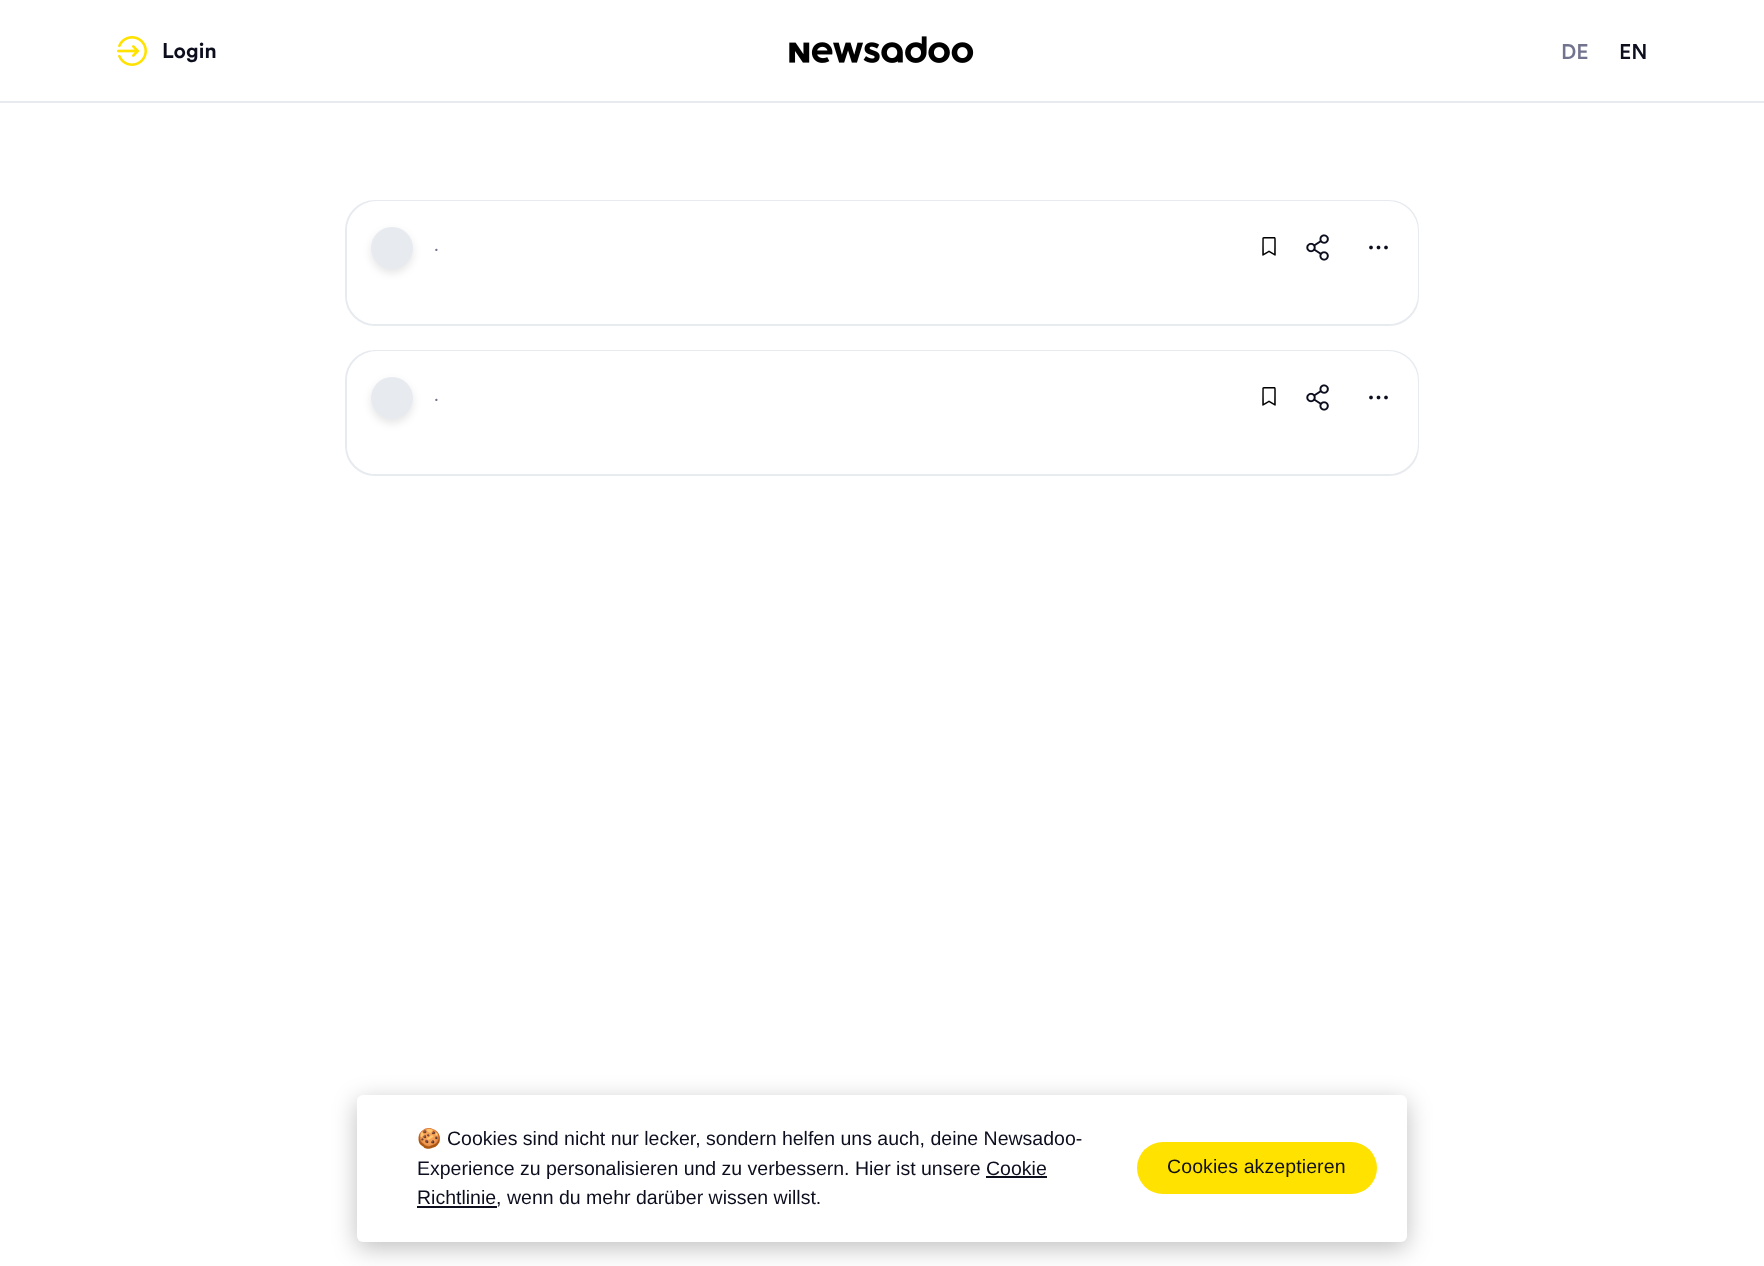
(async () => {
    const canvas = document.querySelector("canvas");
    canvas.width = 1764;
    canvas.height = 1266;
    const context = canvas.getContext("2d");
    context.miterLimit = 4;
    context.fontKerning = "normal";
    function write(s, x, y, font, color) {
        context.font = font;
        context.fillStyle = color;
        context.fillText(s, x, y);
    }
    function block(x, y, w, h, color) {
        context.fillStyle = color;
        context.fillRect(x, y, w, h);
    }
    function card(x, y, w, h, r, color) {
        context.fillStyle = color;
        context.beginPath();
        context.roundRect(x, y, w, h, r);
        context.fill();
    }
    async function photo(src, x, y, w, h) {
        const img = new Image();
        img.src = src;
        await img.decode();
        context.drawImage(img, x, y, w, h);
    }

    block(0, 0, 1764, 1266, "rgb(255, 255, 255)");
    block(0, 101, 1764, 2, "rgb(231, 235, 240)");
    await photo("media/1.png", 117, 36, 30, 30);
    write("Login", 162, 58, "bold 21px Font", "rgb(12, 14, 30)");
    await photo("media/2.png", 789, 36, 185, 27);
    write("DE", 1561, 59, "500 21px Font", "rgb(114, 116, 143)");
    write("EN", 1619, 59, "500 21px Font", "rgb(12, 14, 30)");
    context.beginPath();
    context.roundRect(346, 201, 1072, 124, 29);
    context.strokeStyle = "rgb(231, 235, 240)";
    context.lineWidth = 2;
    context.stroke();
    card(347, 201, 1071, 123, 30, "rgb(255, 255, 255)");
    context.fillStyle = "rgba(0, 0, 0, 0.1)";
    context.filter = "blur(4.5px)";
    context.beginPath();
    context.roundRect(371, 231, 42, 42, 21);
    context.fill();
    context.filter = "none";
    context.fillStyle = "rgb(231, 235, 240)";
    context.beginPath();
    context.arc(392, 248, 21, 0, Math.PI * 2);
    context.fill();
    context.letterSpacing = "0.1px";
    write("·", 434, 255, "18px Font", "rgb(114, 116, 143)");
    await photo("media/3.png", 1262, 237, 14, 19);
    await photo("media/4.png", 1306, 234, 23, 27);
    await photo("media/5.png", 1369, 245, 19, 5);
    context.beginPath();
    context.roundRect(346, 351, 1072, 124, 29);
    context.stroke();
    card(347, 351, 1071, 123, 30, "rgb(255, 255, 255)");
    context.fillStyle = "rgba(0, 0, 0, 0.1)";
    context.filter = "blur(4.5px)";
    context.beginPath();
    context.roundRect(371, 381, 42, 42, 21);
    context.fill();
    context.filter = "none";
    context.fillStyle = "rgb(231, 235, 240)";
    context.beginPath();
    context.arc(392, 398, 21, 0, Math.PI * 2);
    context.fill();
    write("·", 434, 405, "18px Font", "rgb(114, 116, 143)");
    await photo("media/3.png", 1262, 387, 14, 19);
    await photo("media/4.png", 1306, 384, 23, 27);
    await photo("media/5.png", 1369, 395, 19, 5);
    context.fillStyle = "rgba(0, 0, 0, 0.25)";
    context.filter = "blur(12px)";
    context.beginPath();
    context.roundRect(357, 1101, 1050, 147, 6);
    context.fill();
    context.filter = "none";
    card(357, 1095, 1050, 147, 6, "rgb(255, 255, 255)");
    context.letterSpacing = "0px";
    write("🍪", 417, 1145, "19.5px Noto Color Emoji", "rgb(12, 14, 30)");
    write("Cookies sind nicht nur lecker, sondern helfen uns auch, deine Newsadoo-", 447, 1145, "19.5px Liberation Sans", "rgb(12, 14, 30)");
    write("Experience zu personalisieren und zu verbessern. Hier ist unsere Cookie", 417, 1175, "19.5px Liberation Sans", "rgb(12, 14, 30)");
    block(417, 1206, 80, 2, "rgb(12, 14, 30)");
    write("Richtlinie, wenn du mehr darüber wissen willst.", 417, 1204, "19.5px Liberation Sans", "rgb(12, 14, 30)");
    block(986, 1176, 61, 2, "rgb(12, 14, 30)");
    card(1137, 1142, 240, 52, 26, "rgb(255, 226, 0)");
    context.letterSpacing = "0.1px";
    write("Cookies akzeptieren", 1167, 1173, "19.5px Liberation Sans", "rgb(17, 17, 17)");
})();
